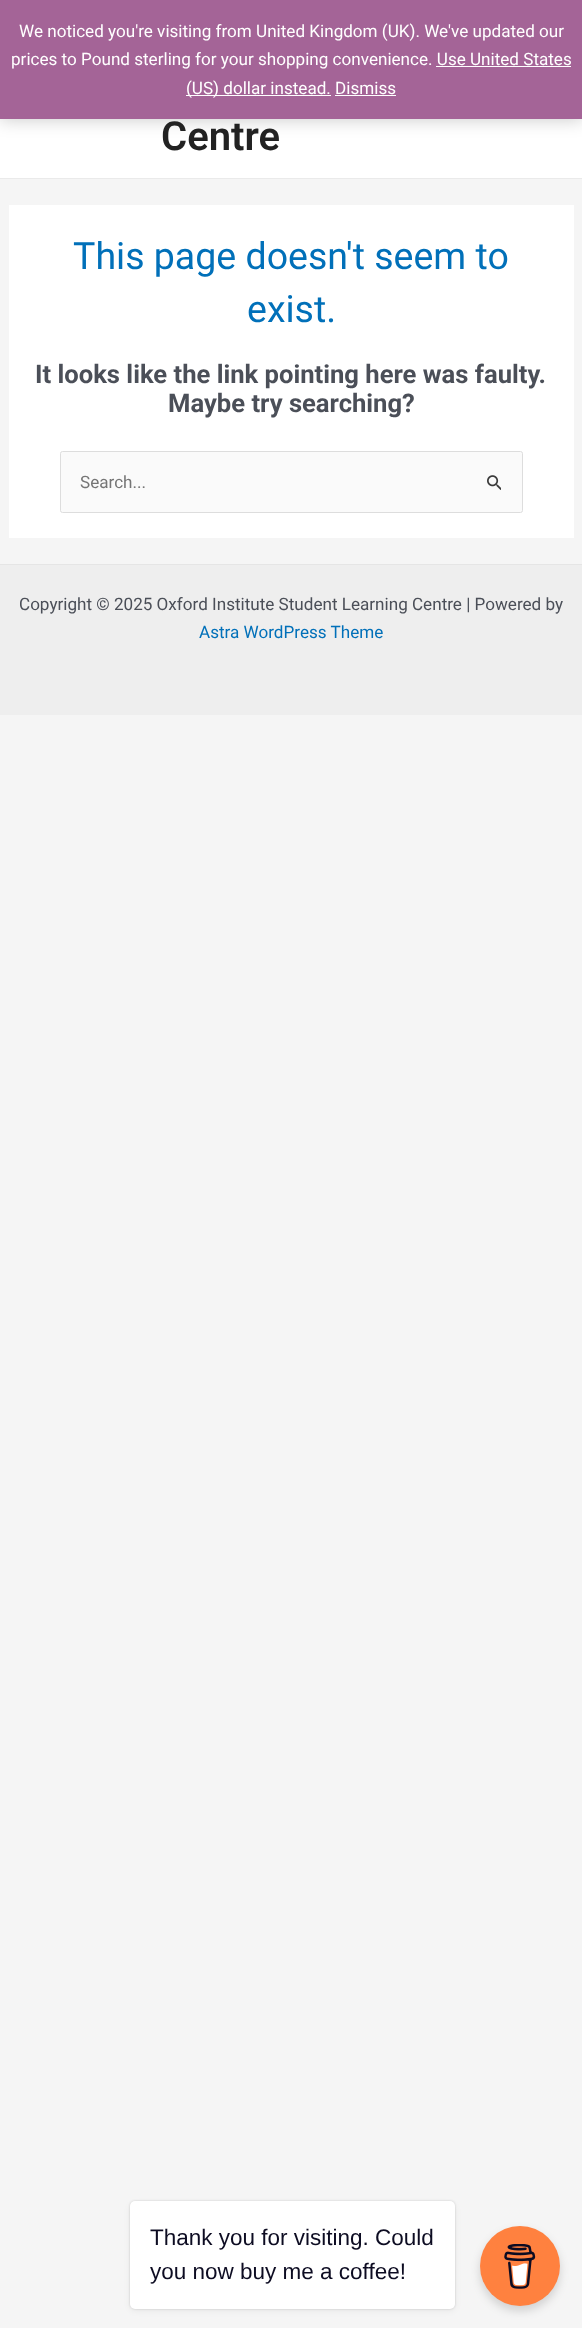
(async () => {
    const canvas = document.querySelector("canvas");
    canvas.width = 582;
    canvas.height = 2328;
    const context = canvas.getContext("2d");
    context.miterLimit = 4;
    context.fontKerning = "normal";
    function write(s, x, y, font, color) {
        context.font = font;
        context.fillStyle = color;
        context.fillText(s, x, y);
    }
    function block(x, y, w, h, color) {
        context.fillStyle = color;
        context.fillRect(x, y, w, h);
    }
    function card(x, y, w, h, r, color) {
        context.fillStyle = color;
        context.beginPath();
        context.roundRect(x, y, w, h, r);
        context.fill();
    }
    async function photo(src, x, y, w, h) {
        const img = new Image();
        img.src = src;
        await img.decode();
        context.drawImage(img, x, y, w, h);
    }

    block(0, 0, 582, 2328, "rgb(245, 245, 245)");
    block(0, 119, 582, 59, "rgb(255, 255, 255)");
    context.fillStyle = "rgba(0, 0, 0, 0.2)";
    context.filter = "blur(8.5px)";
    context.beginPath();
    context.rect(0, 1, 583, 119);
    context.fill();
    context.filter = "none";
    block(0, 0, 582, 119, "rgb(164, 100, 151)");
    write("We noticed you're visiting from United Kingdom (UK). We've updated our", 19, 37, "17.1px Roboto", "rgb(255, 255, 255)");
    write("prices to Pound sterling for your shopping convenience. Use United States", 11, 65, "17.1px Roboto", "rgb(255, 255, 255)");
    block(186, 95, 145, 1, "rgb(255, 255, 255)");
    write("(US) dollar instead. Dismiss", 186, 94, "17.1px Roboto", "rgb(255, 255, 255)");
    block(436, 66, 135, 1, "rgb(255, 255, 255)");
    block(335, 95, 61, 1, "rgb(255, 255, 255)");
    block(0, 178, 582, 1, "rgb(234, 234, 234)");
    write("Centre", 161, 150, "600 40px Roboto", "rgb(34, 34, 34)");
    block(9, 205, 565, 333, "rgb(255, 255, 255)");
    write("This page doesn't seem to", 73, 269, "37.5px Roboto", "rgb(1, 112, 185)");
    write("exist.", 247, 322, "37.5px Roboto", "rgb(1, 112, 185)");
    write("It looks like the link pointing here was faulty.", 35, 383, "bold 25.6px Roboto", "rgb(75, 79, 88)");
    write("Maybe try searching?", 168, 412, "bold 25.6px Roboto", "rgb(75, 79, 88)");
    context.fillStyle = "rgb(250, 250, 250)";
    context.beginPath();
    context.roundRect(60.5, 451.5, 462, 61, 2);
    context.fill();
    context.strokeStyle = "rgb(221, 221, 221)";
    context.stroke();
    write("Search...", 80, 488, "17.1px Roboto", "rgb(117, 117, 117)");
    await photo("media/1.png", 487, 475, 14, 15);
    block(0, 565, 582, 150, "rgb(238, 238, 238)");
    block(0, 564, 582, 1, "rgb(229, 229, 229)");
    write("Copyright © 2025 Oxford Institute Student Learning Centre | Powered by", 19, 610, "17.1px Roboto", "rgb(75, 79, 88)");
    write("Astra WordPress Theme", 199, 638, "17.1px Roboto", "rgb(1, 112, 185)");
    context.fillStyle = "rgba(0, 0, 0, 0.15)";
    context.filter = "blur(1px)";
    context.beginPath();
    context.roundRect(130, 2201, 325, 108, 5);
    context.fill();
    context.filter = "none";
    context.fillStyle = "rgba(0, 0, 0, 0.05)";
    context.filter = "blur(3px)";
    context.beginPath();
    context.roundRect(130, 2204, 325, 107, 5);
    context.fill();
    context.filter = "none";
    card(130, 2201, 325, 108, 5, "rgb(255, 255, 255)");
    write("Thank you for visiting. Could", 150, 2245, "22.5px Liberation Sans", "rgb(13, 12, 34)");
    write("you now buy me a coffee!", 150, 2279, "22.5px Liberation Sans", "rgb(13, 12, 34)");
    context.fillStyle = "rgba(0, 0, 0, 0.15)";
    context.filter = "blur(5px)";
    context.beginPath();
    context.roundRect(480, 2231, 80, 80, 40);
    context.fill();
    context.filter = "none";
    context.fillStyle = "rgb(255, 129, 63)";
    context.beginPath();
    context.arc(520, 2266, 40, 0, Math.PI * 2);
    context.fill();
    await photo("media/2.png", 504, 2244, 32, 45);
})();
